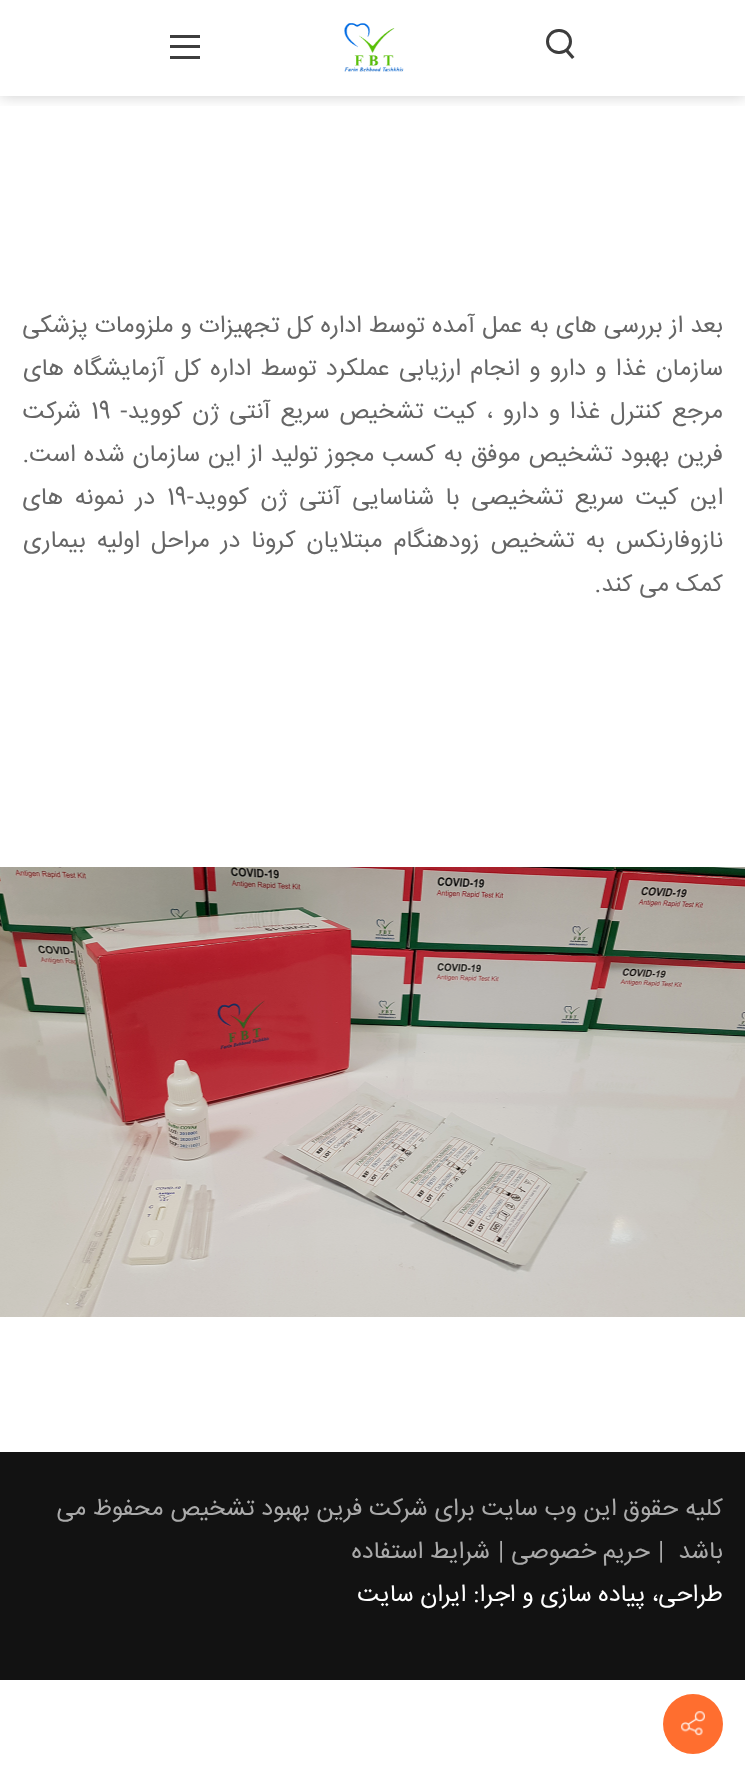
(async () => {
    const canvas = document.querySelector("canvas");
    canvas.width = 745;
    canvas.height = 1774;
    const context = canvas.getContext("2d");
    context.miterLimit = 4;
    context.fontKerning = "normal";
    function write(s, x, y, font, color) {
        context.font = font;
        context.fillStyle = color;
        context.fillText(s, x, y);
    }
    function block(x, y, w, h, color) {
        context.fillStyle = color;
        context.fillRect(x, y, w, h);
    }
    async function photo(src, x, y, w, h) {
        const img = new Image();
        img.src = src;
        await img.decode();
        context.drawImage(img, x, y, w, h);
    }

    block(0, 0, 745, 1774, "rgb(255, 255, 255)");
    context.save();
    context.beginPath();
    context.rect(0, 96, 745, 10);
    context.clip();
    context.fillStyle = "rgba(0, 0, 0, 0.2)";
    context.filter = "blur(7.5px)";
    context.beginPath();
    context.rect(0, 0, 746, 96);
    context.fill();
    context.filter = "none";
    context.restore();
    context.fillStyle = "rgb(61, 61, 61)";
    context.beginPath();
    context.moveTo(567.5, 49);
    context.lineTo(574.5, 57);
    context.lineTo(572, 59);
    context.lineTo(565, 51);
    context.closePath();
    context.fill();
    context.beginPath();
    context.roundRect(547.5, 30.5, 23, 22, 11);
    context.strokeStyle = "rgb(61, 61, 61)";
    context.lineWidth = 3;
    context.stroke();
    await photo("media/1.png", 344, 23, 60, 49);
    block(170, 35, 30, 3, "rgb(61, 61, 61)");
    block(170, 45, 30, 3, "rgb(61, 61, 61)");
    block(170, 56, 30, 3, "rgb(61, 61, 61)");
    context.wordSpacing = "0.4px";
    context.direction = "rtl";
    write("بعد از بررسی های به عمل آمده توسط اداره کل تجهیزات و ملزومات پزشکی", 723, 332, "24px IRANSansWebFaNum", "rgb(102, 102, 102)");
    context.wordSpacing = "2.5px";
    write("سازمان غذا و دارو و انجام ارزیابی عملکرد توسط اداره کل آزمایشگاه های", 723, 375, "24px IRANSansWebFaNum", "rgb(102, 102, 102)");
    context.wordSpacing = "3px";
    write("مرجع کنترل غذا و دارو ، کیت تشخیص سریع آنتی ژن کووید-", 723, 418, "24px IRANSansWebFaNum", "rgb(102, 102, 102)");
    context.wordSpacing = "0px";
    context.direction = "ltr";
    write("19", 91, 418, "24px IRANSansWebFaNum", "rgb(102, 102, 102)");
    context.direction = "rtl";
    write("شرکت", 81, 418, "24px IRANSansWebFaNum", "rgb(102, 102, 102)");
    context.wordSpacing = "1.25px";
    write("فرین بهبود تشخیص موفق به کسب مجوز تولید از این سازمان شده است.", 723, 461, "24px IRANSansWebFaNum", "rgb(102, 102, 102)");
    context.wordSpacing = "4.75px";
    write("این کیت سریع تشخیصی با شناسایی آنتی ژن کووید-", 723, 504, "24px IRANSansWebFaNum", "rgb(102, 102, 102)");
    context.wordSpacing = "0px";
    context.direction = "ltr";
    write("19", 167, 504, "24px IRANSansWebFaNum", "rgb(102, 102, 102)");
    context.wordSpacing = "4.75px";
    context.direction = "rtl";
    write("در نمونه های", 155, 504, "24px IRANSansWebFaNum", "rgb(102, 102, 102)");
    context.wordSpacing = "4.25px";
    write("نازوفارنکس به تشخیص زودهنگام مبتلایان کرونا در مراحل اولیه بیماری", 723, 547, "24px IRANSansWebFaNum", "rgb(102, 102, 102)");
    context.wordSpacing = "0px";
    write("کمک می کند.", 723, 591, "24px IRANSansWebFaNum", "rgb(102, 102, 102)");
    await photo("media/2.png", 0, 867, 745, 450);
    block(0, 1452, 745, 228, "rgb(18, 18, 18)");
    write("کلیه حقوق این وب سایت برای شرکت فرین بهبود تشخیص محفوظ می", 723, 1515, "24px IRANSansWebFaNum", "rgb(170, 170, 170)");
    write("باشد", 723, 1558, "24px IRANSansWebFaNum", "rgb(170, 170, 170)");
    context.direction = "ltr";
    write("|", 658, 1558, "24px IRANSansWebFaNum", "rgb(170, 170, 170)");
    context.direction = "rtl";
    write("حریم خصوصی", 650, 1558, "24px IRANSansWebFaNum", "rgb(170, 170, 170)");
    context.direction = "ltr";
    write("|", 498, 1558, "24px IRANSansWebFaNum", "rgb(170, 170, 170)");
    context.direction = "rtl";
    write("شرایط استفاده", 490, 1558, "24px IRANSansWebFaNum", "rgb(170, 170, 170)");
    write("طراحی، پیاده سازی و اجرا:", 723, 1601, "24px IRANSansWebFaNum", "rgb(255, 255, 255)");
    write("ایران سایت", 466, 1601, "24px IRANSansWebFaNum", "rgb(255, 255, 255)");
    context.fillStyle = "rgb(255, 110, 47)";
    context.beginPath();
    context.arc(693, 1724, 30, 0, Math.PI * 2);
    context.fill();
    await photo("media/3.png", 681, 1711, 24, 25);
})();
